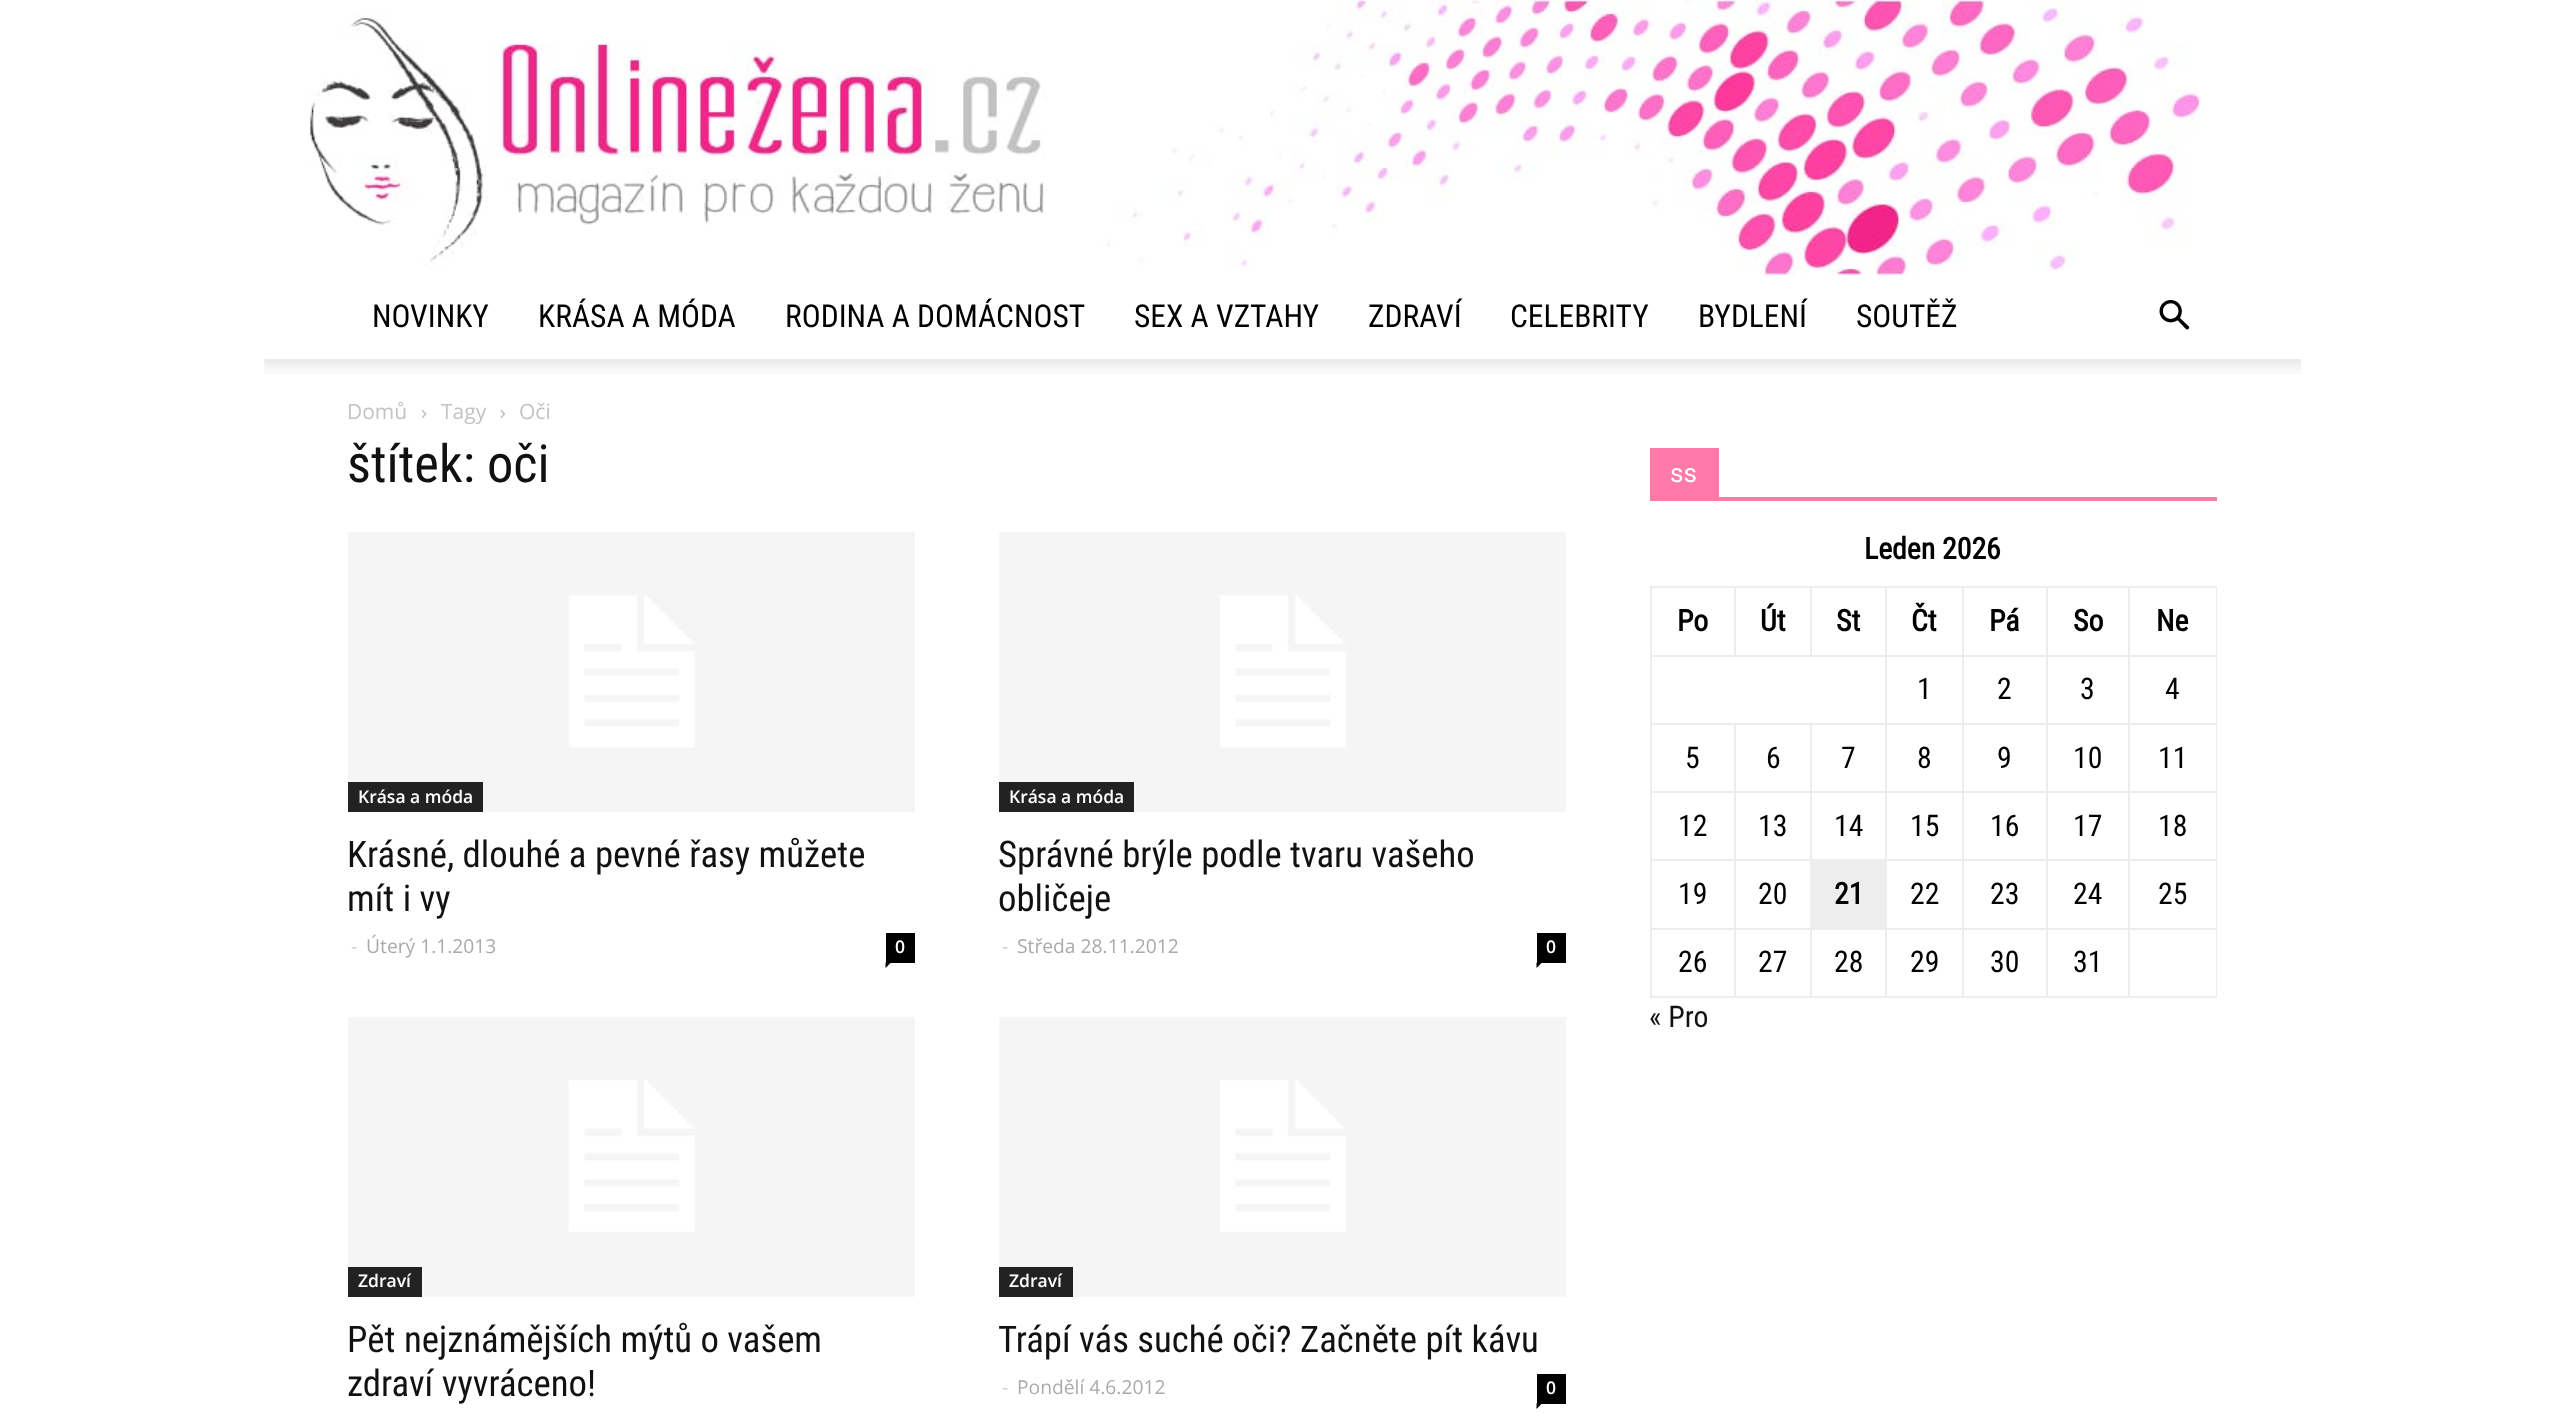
(async () => {
    const canvas = document.querySelector("canvas");
    canvas.width = 2563;
    canvas.height = 1414;
    const context = canvas.getContext("2d");
    context.miterLimit = 4;
    context.fontKerning = "normal";
    function write(s, x, y, font, color) {
        context.font = font;
        context.fillStyle = color;
        context.fillText(s, x, y);
    }
    function block(x, y, w, h, color) {
        context.fillStyle = color;
        context.fillRect(x, y, w, h);
    }
    async function photo(src, x, y, w, h) {
        const img = new Image();
        img.src = src;
        await img.decode();
        context.drawImage(img, x, y, w, h);
    }

    block(0, 0, 2563, 1414, "rgb(255, 255, 255)");
    await photo("media/1.png", 310, 0, 1891, 275);
    write("NOVINKY", 372, 327, "31.5px Roboto Condensed", "rgb(0, 0, 0)");
    write("KRÁSA A MÓDA", 538, 327, "31.5px Roboto Condensed", "rgb(0, 0, 0)");
    write("RODINA A DOMÁCNOST", 785, 327, "31.5px Roboto Condensed", "rgb(0, 0, 0)");
    write("SEX A VZTAHY", 1134, 327, "31.5px Roboto Condensed", "rgb(0, 0, 0)");
    write("ZDRAVÍ", 1368, 327, "31.5px Roboto Condensed", "rgb(0, 0, 0)");
    write("CELEBRITY", 1510, 327, "31.5px Roboto Condensed", "rgb(0, 0, 0)");
    write("BYDLENÍ", 1698, 327, "31.5px Roboto Condensed", "rgb(0, 0, 0)");
    write("SOUTĚŽ", 1856, 327, "31.5px Roboto Condensed", "rgb(0, 0, 0)");
    await photo("media/2.png", 2159, 300, 31, 30);
    await photo("media/3.png", 264, 359, 2037, 15);
    write("Domů", 347, 419, "21px Open Sans", "rgb(195, 195, 195)");
    await photo("media/4.png", 421, 410, 6, 8);
    write("Tagy", 441, 419, "21px Open Sans", "rgb(195, 195, 195)");
    await photo("media/5.png", 500, 410, 6, 8);
    write("Oči", 519, 419, "21px Open Sans", "rgb(195, 195, 195)");
    write("štítek: oči", 347, 482, "52.5px Roboto Condensed", "rgb(17, 17, 17)");
    await photo("media/6.png", 348, 532, 567, 280);
    block(348, 782, 135, 30, "rgb(34, 34, 34)");
    write("Krása a móda", 358, 803, "600 17.5px Open Sans", "rgb(255, 255, 255)");
    write("Krásné, dlouhé a pevné řasy můžete", 347, 867, "36.75px Roboto Condensed", "rgb(17, 17, 17)");
    write("mít i vy", 347, 911, "36.75px Roboto Condensed", "rgb(17, 17, 17)");
    write("-", 351, 953, "19.25px Open Sans", "rgb(204, 204, 204)");
    write("Úterý 1.1.2013", 366, 953, "19.25px Open Sans", "rgb(170, 170, 170)");
    block(886, 933, 29, 30, "rgb(0, 0, 0)");
    write("0", 895, 953, "600 17.5px Open Sans", "rgb(255, 255, 255)");
    context.fillStyle = "rgb(0, 0, 0)";
    context.beginPath();
    context.moveTo(885.5, 962.5);
    context.lineTo(891, 962.5);
    context.lineTo(885.5, 968);
    context.closePath();
    context.fill();
    await photo("media/6.png", 999, 532, 567, 280);
    block(999, 782, 135, 30, "rgb(34, 34, 34)");
    write("Krása a móda", 1009, 803, "600 17.5px Open Sans", "rgb(255, 255, 255)");
    write("Správné brýle podle tvaru vašeho", 998, 867, "36.75px Roboto Condensed", "rgb(17, 17, 17)");
    write("obličeje", 998, 911, "36.75px Roboto Condensed", "rgb(17, 17, 17)");
    write("-", 1002, 953, "19.25px Open Sans", "rgb(204, 204, 204)");
    write("Středa 28.11.2012", 1017, 953, "19.25px Open Sans", "rgb(170, 170, 170)");
    block(1537, 933, 29, 30, "rgb(0, 0, 0)");
    write("0", 1546, 953, "600 17.5px Open Sans", "rgb(255, 255, 255)");
    context.fillStyle = "rgb(0, 0, 0)";
    context.beginPath();
    context.moveTo(1536.5, 962.5);
    context.lineTo(1542, 962.5);
    context.lineTo(1536.5, 968);
    context.closePath();
    context.fill();
    await photo("media/7.png", 348, 1017, 567, 280);
    block(348, 1267, 74, 30, "rgb(34, 34, 34)");
    write("Zdraví", 358, 1287, "600 17.5px Open Sans", "rgb(255, 255, 255)");
    write("Pět nejznámějších mýtů o vašem", 347, 1352, "36.75px Roboto Condensed", "rgb(17, 17, 17)");
    write("zdraví vyvráceno!", 347, 1396, "36.75px Roboto Condensed", "rgb(17, 17, 17)");
    await photo("media/7.png", 999, 1017, 567, 280);
    block(999, 1267, 74, 30, "rgb(34, 34, 34)");
    write("Zdraví", 1009, 1287, "600 17.5px Open Sans", "rgb(255, 255, 255)");
    write("Trápí vás suché oči? Začněte pít kávu", 998, 1352, "36.75px Roboto Condensed", "rgb(17, 17, 17)");
    write("-", 1002, 1394, "19.25px Open Sans", "rgb(204, 204, 204)");
    write("Pondělí 4.6.2012", 1017, 1394, "19.25px Open Sans", "rgb(170, 170, 170)");
    block(1537, 1374, 29, 30, "rgb(0, 0, 0)");
    write("0", 1546, 1394, "600 17.5px Open Sans", "rgb(255, 255, 255)");
    context.fillStyle = "rgb(0, 0, 0)";
    context.beginPath();
    context.moveTo(1536.5, 1403.5);
    context.lineTo(1542, 1403.5);
    context.lineTo(1536.5, 1409);
    context.closePath();
    context.fill();
    block(1650, 497, 567, 4, "rgb(255, 122, 168)");
    block(1650, 448, 69, 49, "rgb(255, 122, 168)");
    write("ss", 1670, 482, "26px Roboto", "rgb(255, 255, 255)");
    write("Leden 2026", 1864, 559, "bold 29.75px Roboto Condensed", "rgb(0, 0, 0)");
    block(2128, 586, 89, 2, "rgb(237, 237, 237)");
    block(2128, 655, 89, 2, "rgb(237, 237, 237)");
    block(2128, 723, 89, 2, "rgb(237, 237, 237)");
    block(2128, 791, 89, 2, "rgb(237, 237, 237)");
    block(2128, 859, 89, 2, "rgb(237, 237, 237)");
    block(2128, 928, 89, 2, "rgb(237, 237, 237)");
    block(2216, 928, 1, 70, "rgb(237, 237, 237)");
    block(2128, 996, 89, 2, "rgb(237, 237, 237)");
    block(2128, 928, 2, 70, "rgb(237, 237, 237)");
    block(2046, 928, 84, 2, "rgb(237, 237, 237)");
    block(2128, 859, 2, 70, "rgb(237, 237, 237)");
    block(2046, 859, 84, 2, "rgb(237, 237, 237)");
    block(2128, 791, 2, 70, "rgb(237, 237, 237)");
    block(2046, 791, 84, 2, "rgb(237, 237, 237)");
    block(2128, 723, 2, 70, "rgb(237, 237, 237)");
    block(2046, 723, 84, 2, "rgb(237, 237, 237)");
    block(2128, 655, 2, 70, "rgb(237, 237, 237)");
    block(2046, 655, 84, 2, "rgb(237, 237, 237)");
    block(2128, 586, 2, 70, "rgb(237, 237, 237)");
    block(2046, 586, 84, 2, "rgb(237, 237, 237)");
    block(2046, 996, 84, 2, "rgb(237, 237, 237)");
    block(2046, 928, 2, 70, "rgb(237, 237, 237)");
    block(1962, 928, 86, 2, "rgb(237, 237, 237)");
    block(2046, 859, 2, 70, "rgb(237, 237, 237)");
    block(1962, 859, 86, 2, "rgb(237, 237, 237)");
    block(2046, 791, 2, 70, "rgb(237, 237, 237)");
    block(1962, 791, 86, 2, "rgb(237, 237, 237)");
    block(2046, 723, 2, 70, "rgb(237, 237, 237)");
    block(1962, 723, 86, 2, "rgb(237, 237, 237)");
    block(2046, 655, 2, 70, "rgb(237, 237, 237)");
    block(1962, 655, 86, 2, "rgb(237, 237, 237)");
    block(2046, 586, 2, 70, "rgb(237, 237, 237)");
    block(1962, 586, 86, 2, "rgb(237, 237, 237)");
    block(1962, 996, 86, 2, "rgb(237, 237, 237)");
    block(1962, 928, 2, 70, "rgb(237, 237, 237)");
    block(1885, 928, 79, 2, "rgb(237, 237, 237)");
    block(1962, 859, 2, 70, "rgb(237, 237, 237)");
    block(1810, 859, 154, 2, "rgb(237, 237, 237)");
    block(1962, 791, 2, 70, "rgb(237, 237, 237)");
    block(1885, 791, 79, 2, "rgb(237, 237, 237)");
    block(1962, 723, 2, 70, "rgb(237, 237, 237)");
    block(1885, 723, 79, 2, "rgb(237, 237, 237)");
    block(1962, 655, 2, 70, "rgb(237, 237, 237)");
    block(1885, 655, 79, 2, "rgb(237, 237, 237)");
    block(1962, 586, 2, 70, "rgb(237, 237, 237)");
    block(1885, 586, 79, 2, "rgb(237, 237, 237)");
    block(1885, 791, 2, 70, "rgb(237, 237, 237)");
    block(1810, 791, 77, 2, "rgb(237, 237, 237)");
    block(1885, 723, 2, 70, "rgb(237, 237, 237)");
    block(1810, 723, 77, 2, "rgb(237, 237, 237)");
    block(1885, 655, 2, 70, "rgb(237, 237, 237)");
    block(1650, 655, 237, 2, "rgb(237, 237, 237)");
    block(1885, 586, 2, 70, "rgb(237, 237, 237)");
    block(1810, 586, 77, 2, "rgb(237, 237, 237)");
    block(1810, 586, 2, 70, "rgb(237, 237, 237)");
    block(1734, 586, 77, 2, "rgb(237, 237, 237)");
    block(1734, 586, 2, 70, "rgb(237, 237, 237)");
    block(1650, 586, 86, 2, "rgb(237, 237, 237)");
    block(1885, 996, 79, 2, "rgb(237, 237, 237)");
    block(1885, 928, 2, 70, "rgb(237, 237, 237)");
    block(1810, 928, 77, 2, "rgb(237, 237, 237)");
    block(1810, 996, 77, 2, "rgb(237, 237, 237)");
    block(1810, 928, 2, 70, "rgb(237, 237, 237)");
    block(1734, 928, 77, 2, "rgb(237, 237, 237)");
    block(1810, 859, 2, 70, "rgb(237, 237, 237)");
    block(1734, 859, 77, 2, "rgb(237, 237, 237)");
    block(1810, 791, 2, 70, "rgb(237, 237, 237)");
    block(1734, 791, 77, 2, "rgb(237, 237, 237)");
    block(1810, 723, 2, 70, "rgb(237, 237, 237)");
    block(1734, 723, 77, 2, "rgb(237, 237, 237)");
    block(1734, 996, 77, 2, "rgb(237, 237, 237)");
    block(1734, 928, 2, 70, "rgb(237, 237, 237)");
    block(1650, 928, 86, 2, "rgb(237, 237, 237)");
    block(1734, 859, 2, 70, "rgb(237, 237, 237)");
    block(1650, 859, 86, 2, "rgb(237, 237, 237)");
    block(1734, 791, 2, 70, "rgb(237, 237, 237)");
    block(1650, 791, 86, 2, "rgb(237, 237, 237)");
    block(1734, 723, 2, 70, "rgb(237, 237, 237)");
    block(1650, 723, 86, 2, "rgb(237, 237, 237)");
    block(1650, 996, 86, 2, "rgb(237, 237, 237)");
    block(1650, 928, 2, 70, "rgb(237, 237, 237)");
    block(1650, 859, 2, 70, "rgb(237, 237, 237)");
    block(1650, 791, 2, 70, "rgb(237, 237, 237)");
    block(1650, 723, 2, 70, "rgb(237, 237, 237)");
    block(1650, 655, 2, 70, "rgb(237, 237, 237)");
    block(1650, 586, 2, 70, "rgb(237, 237, 237)");
    write("Po", 1677, 631, "bold 29.75px Roboto Condensed", "rgb(0, 0, 0)");
    write("Út", 1760, 631, "bold 29.75px Roboto Condensed", "rgb(0, 0, 0)");
    write("St", 1836, 631, "bold 29.75px Roboto Condensed", "rgb(0, 0, 0)");
    write("Čt", 1911, 631, "bold 29.75px Roboto Condensed", "rgb(0, 0, 0)");
    write("Pá", 1989, 631, "bold 29.75px Roboto Condensed", "rgb(0, 0, 0)");
    write("So", 2073, 631, "bold 29.75px Roboto Condensed", "rgb(0, 0, 0)");
    block(2216, 859, 1, 70, "rgb(237, 237, 237)");
    block(2216, 791, 1, 70, "rgb(237, 237, 237)");
    block(2216, 723, 1, 70, "rgb(237, 237, 237)");
    block(2216, 655, 1, 70, "rgb(237, 237, 237)");
    block(2216, 586, 1, 70, "rgb(237, 237, 237)");
    write("Ne", 2156, 631, "bold 29.75px Roboto Condensed", "rgb(0, 0, 0)");
    write("1", 1917, 699, "29.75px Roboto Condensed", "rgb(0, 0, 0)");
    write("2", 1997, 699, "29.75px Roboto Condensed", "rgb(0, 0, 0)");
    write("3", 2080, 699, "29.75px Roboto Condensed", "rgb(0, 0, 0)");
    write("4", 2165, 699, "29.75px Roboto Condensed", "rgb(0, 0, 0)");
    write("5", 1685, 768, "29.75px Roboto Condensed", "rgb(0, 0, 0)");
    write("6", 1766, 768, "29.75px Roboto Condensed", "rgb(0, 0, 0)");
    write("7", 1841, 768, "29.75px Roboto Condensed", "rgb(0, 0, 0)");
    write("8", 1917, 768, "29.75px Roboto Condensed", "rgb(0, 0, 0)");
    write("9", 1997, 768, "29.75px Roboto Condensed", "rgb(0, 0, 0)");
    write("10", 2073, 768, "29.75px Roboto Condensed", "rgb(0, 0, 0)");
    write("11", 2158, 768, "29.75px Roboto Condensed", "rgb(0, 0, 0)");
    write("12", 1678, 836, "29.75px Roboto Condensed", "rgb(0, 0, 0)");
    write("13", 1758, 836, "29.75px Roboto Condensed", "rgb(0, 0, 0)");
    write("14", 1834, 836, "29.75px Roboto Condensed", "rgb(0, 0, 0)");
    write("15", 1910, 836, "29.75px Roboto Condensed", "rgb(0, 0, 0)");
    write("16", 1990, 836, "29.75px Roboto Condensed", "rgb(0, 0, 0)");
    write("17", 2073, 836, "29.75px Roboto Condensed", "rgb(0, 0, 0)");
    write("18", 2158, 836, "29.75px Roboto Condensed", "rgb(0, 0, 0)");
    write("19", 1678, 904, "29.75px Roboto Condensed", "rgb(0, 0, 0)");
    write("20", 1758, 904, "29.75px Roboto Condensed", "rgb(0, 0, 0)");
    block(1812, 861, 75, 67, "rgb(237, 237, 237)");
    write("21", 1834, 904, "bold 29.75px Roboto Condensed", "rgb(0, 0, 0)");
    write("22", 1910, 904, "29.75px Roboto Condensed", "rgb(0, 0, 0)");
    write("23", 1990, 904, "29.75px Roboto Condensed", "rgb(0, 0, 0)");
    write("24", 2073, 904, "29.75px Roboto Condensed", "rgb(0, 0, 0)");
    write("25", 2158, 904, "29.75px Roboto Condensed", "rgb(0, 0, 0)");
    write("26", 1678, 972, "29.75px Roboto Condensed", "rgb(0, 0, 0)");
    write("27", 1758, 972, "29.75px Roboto Condensed", "rgb(0, 0, 0)");
    write("28", 1834, 972, "29.75px Roboto Condensed", "rgb(0, 0, 0)");
    write("29", 1910, 972, "29.75px Roboto Condensed", "rgb(0, 0, 0)");
    write("30", 1990, 972, "29.75px Roboto Condensed", "rgb(0, 0, 0)");
    write("31", 2073, 972, "29.75px Roboto Condensed", "rgb(0, 0, 0)");
    write("« Pro", 1649, 1027, "29.75px Roboto Condensed", "rgb(17, 17, 17)");
})();
